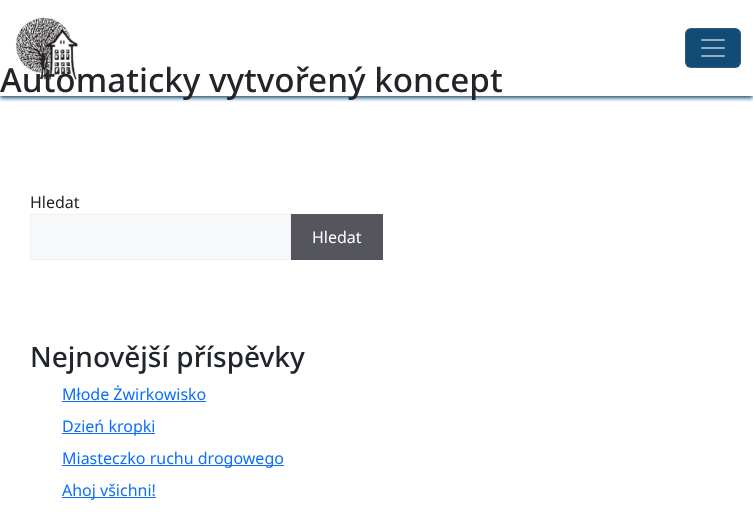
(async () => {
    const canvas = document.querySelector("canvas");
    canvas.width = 753;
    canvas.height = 530;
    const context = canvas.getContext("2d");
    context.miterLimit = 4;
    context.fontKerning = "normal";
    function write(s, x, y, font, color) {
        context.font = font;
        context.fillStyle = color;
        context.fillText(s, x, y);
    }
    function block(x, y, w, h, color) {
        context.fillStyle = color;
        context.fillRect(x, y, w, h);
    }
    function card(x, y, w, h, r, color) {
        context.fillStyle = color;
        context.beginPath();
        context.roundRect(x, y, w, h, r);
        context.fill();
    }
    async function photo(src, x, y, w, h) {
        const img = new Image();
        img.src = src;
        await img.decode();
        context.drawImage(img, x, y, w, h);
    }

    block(0, 0, 753, 530, "rgb(255, 255, 255)");
    context.save();
    context.beginPath();
    context.rect(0, 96, 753, 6);
    context.clip();
    context.fillStyle = "rgb(18, 75, 118)";
    context.filter = "blur(2px)";
    context.beginPath();
    context.rect(0, 2, 753, 96);
    context.fill();
    context.filter = "none";
    context.restore();
    await photo("media/1.png", 15, 17, 63, 63);
    card(685, 28, 56, 40, 6, "rgb(18, 75, 118)");
    context.beginPath();
    context.roundRect(685.5, 28.5, 55, 39, 5.5);
    context.strokeStyle = "rgba(255, 255, 255, 0.1)";
    context.stroke();
    await photo("media/2.png", 701, 39, 24, 18);
    write("Automaticky vytvořený koncept", 0, 92, "500 33.25px Noto Sans", "rgb(33, 37, 41)");
    write("Hledat", 30, 208, "16px Noto Sans", "rgb(33, 37, 41)");
    context.fillStyle = "rgb(247, 248, 249)";
    context.beginPath();
    context.rect(30.5, 214.5, 260, 45);
    context.fill();
    context.strokeStyle = "rgb(240, 240, 240)";
    context.stroke();
    block(291, 214, 92, 46, "rgb(85, 85, 94)");
    write("Hledat", 312, 243, "16px Noto Sans", "rgb(255, 255, 255)");
    write("Nejnovější příspěvky", 30, 367, "500 28px Noto Sans", "rgb(33, 37, 41)");
    write("Młode Żwirkowisko", 62, 400, "16px Noto Sans", "rgb(13, 110, 253)");
    block(62, 401, 144, 1, "rgb(13, 110, 253)");
    block(62, 433, 93, 1, "rgb(13, 110, 253)");
    write("Dzień kropki", 62, 432, "16px Noto Sans", "rgb(13, 110, 253)");
    block(62, 465, 222, 1, "rgb(13, 110, 253)");
    write("Miasteczko ruchu drogowego", 62, 464, "16px Noto Sans", "rgb(13, 110, 253)");
    block(62, 497, 94, 1, "rgb(13, 110, 253)");
    write("Ahoj všichni!", 62, 496, "16px Noto Sans", "rgb(13, 110, 253)");
})();
